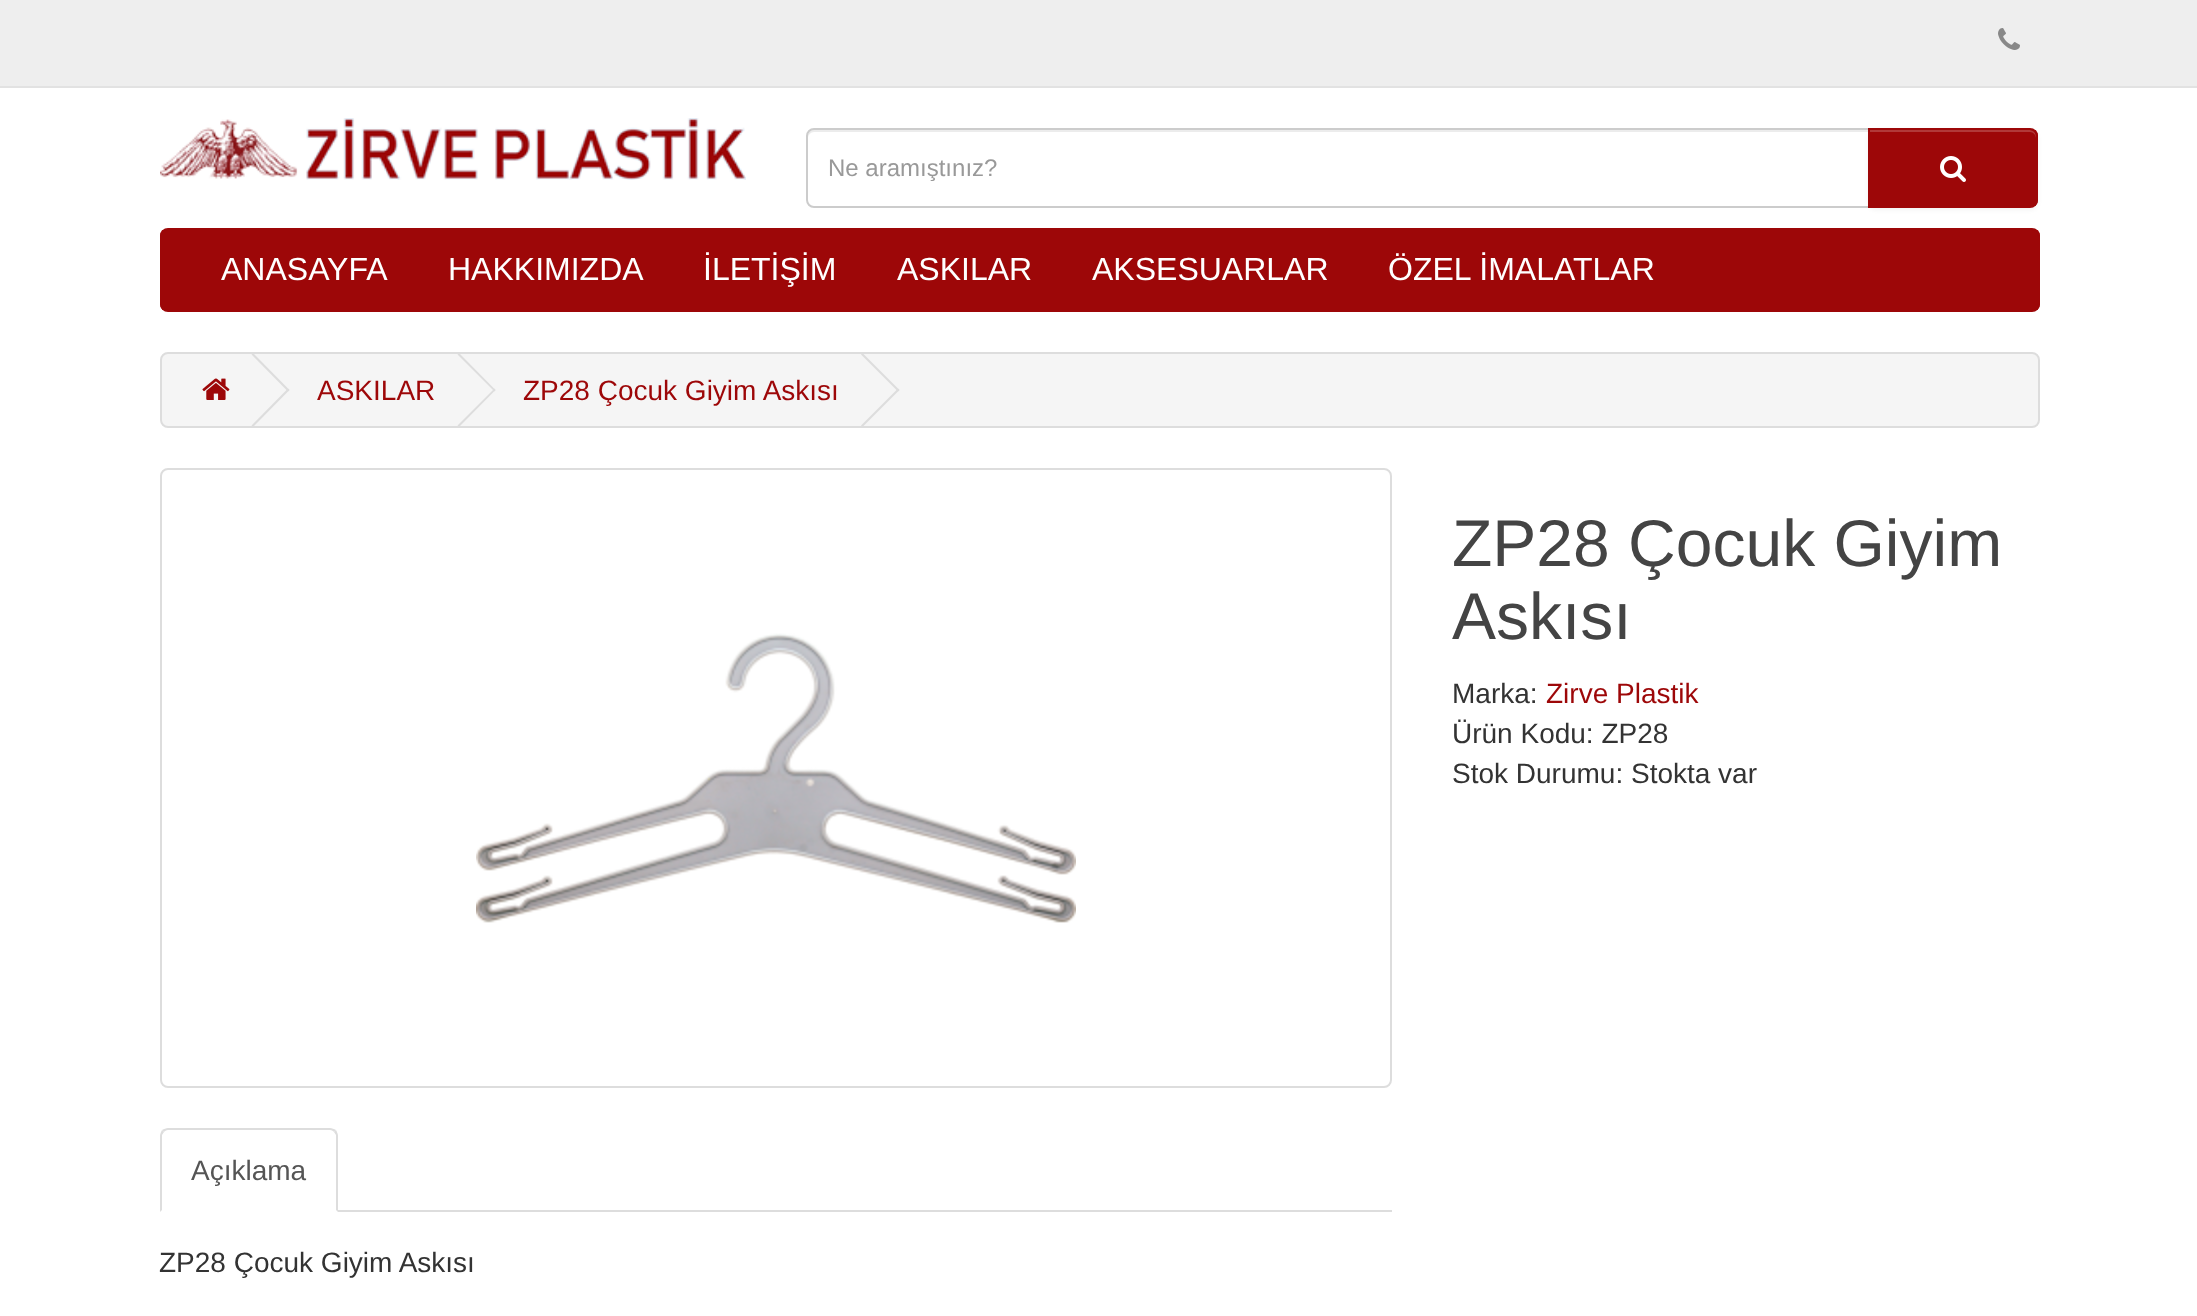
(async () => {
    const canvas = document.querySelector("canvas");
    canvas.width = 2197;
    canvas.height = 1316;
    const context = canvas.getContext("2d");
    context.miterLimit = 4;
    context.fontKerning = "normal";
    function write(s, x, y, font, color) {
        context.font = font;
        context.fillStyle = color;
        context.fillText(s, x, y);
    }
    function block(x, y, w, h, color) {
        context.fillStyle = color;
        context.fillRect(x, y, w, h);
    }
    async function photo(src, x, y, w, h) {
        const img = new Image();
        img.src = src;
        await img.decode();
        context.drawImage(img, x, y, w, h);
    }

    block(0, 0, 2197, 1316, "rgb(255, 255, 255)");
    block(0, 0, 2197, 86, "rgb(238, 238, 238)");
    block(0, 86, 2197, 2, "rgb(226, 226, 226)");
    await photo("media/1.png", 1998, 28, 22, 22);
    await photo("media/2.png", 160, 118, 586, 62);
    context.fillStyle = "rgb(236, 236, 236)";
    context.beginPath();
    context.moveTo(814, 132);
    context.lineTo(1868, 132);
    context.lineTo(1868, 130);
    context.lineTo(814, 130);
    context.bezierCurveTo(809, 130, 808, 134, 808, 138);
    context.bezierCurveTo(808, 135, 811, 132, 814, 132);
    context.closePath();
    context.fill();
    context.beginPath();
    context.roundRect(807, 129, 1062, 78, [7, 0, 0, 7]);
    context.strokeStyle = "rgb(204, 204, 204)";
    context.lineWidth = 2;
    context.stroke();
    write("Ne aramıştınız?", 828, 176, "24px Liberation Sans", "rgb(153, 153, 153)");
    context.fillStyle = "rgba(0, 0, 0, 0.05)";
    context.filter = "blur(2px)";
    context.beginPath();
    context.roundRect(1868, 130, 170, 80, 8);
    context.fill();
    context.filter = "none";
    context.save();
    context.beginPath();
    context.roundRect(1868, 128, 170, 80, [0, 8, 8, 0]);
    context.clip();
    block(1870, 130, 168, 76, "rgb(157, 7, 8)");
    context.restore();
    context.fillStyle = "rgb(177, 57, 57)";
    context.beginPath();
    context.moveTo(1870, 132);
    context.lineTo(2030, 132);
    context.bezierCurveTo(2033, 132, 2036, 135, 2036, 138);
    context.lineTo(2036, 136);
    context.bezierCurveTo(2036, 133, 2033, 130, 2030, 130);
    context.lineTo(1870, 130);
    context.closePath();
    context.fill();
    context.beginPath();
    context.roundRect(1869, 129, 168, 78, [0, 7, 7, 0]);
    context.strokeStyle = "rgb(157, 7, 8)";
    context.stroke();
    await photo("media/3.png", 1940, 156, 26, 26);
    context.save();
    context.beginPath();
    context.roundRect(160, 228, 1880, 84, 8);
    context.clip();
    block(160, 230, 1880, 80, "rgb(157, 7, 8)");
    context.restore();
    context.beginPath();
    context.roundRect(161, 229, 1878, 82, 7);
    context.stroke();
    write("ANASAYFA", 221, 280, "32px Liberation Sans", "rgb(255, 255, 255)");
    write("HAKKIMIZDA", 448, 280, "32px Liberation Sans", "rgb(255, 255, 255)");
    write("İLETİŞİM", 703, 280, "32px Liberation Sans", "rgb(255, 255, 255)");
    write("ASKILAR", 897, 280, "32px Liberation Sans", "rgb(255, 255, 255)");
    write("AKSESUARLAR", 1092, 280, "32px Liberation Sans", "rgb(255, 255, 255)");
    write("ÖZEL İMALATLAR", 1388, 280, "32px Liberation Sans", "rgb(255, 255, 255)");
    context.fillStyle = "rgb(245, 245, 245)";
    context.beginPath();
    context.roundRect(161, 353, 1878, 74, 7);
    context.fill();
    context.strokeStyle = "rgb(221, 221, 221)";
    context.stroke();
    await photo("media/4.png", 202, 378, 28, 22);
    context.fillStyle = "rgb(221, 221, 221)";
    context.beginPath();
    context.moveTo(251.5, 354.5);
    context.lineTo(253, 353);
    context.lineTo(289.5, 390);
    context.lineTo(288, 391.5);
    context.closePath();
    context.fill();
    context.beginPath();
    context.moveTo(251.5, 425.5);
    context.lineTo(288, 388.5);
    context.lineTo(289.5, 390);
    context.lineTo(253, 427);
    context.closePath();
    context.fill();
    write("ASKILAR", 317, 400, "28px Liberation Sans", "rgb(157, 7, 8)");
    context.fillStyle = "rgb(221, 221, 221)";
    context.beginPath();
    context.moveTo(457.5, 354.5);
    context.lineTo(459, 353);
    context.lineTo(495.5, 390);
    context.lineTo(494.5, 391.5);
    context.closePath();
    context.fill();
    context.beginPath();
    context.moveTo(457.5, 425.5);
    context.lineTo(494.5, 388.5);
    context.lineTo(495.5, 390);
    context.lineTo(459, 427);
    context.closePath();
    context.fill();
    write("ZP28 Çocuk Giyim Askısı", 523, 400, "28px Liberation Sans", "rgb(157, 7, 8)");
    context.fillStyle = "rgb(221, 221, 221)";
    context.beginPath();
    context.moveTo(861, 354.5);
    context.lineTo(862.5, 353);
    context.lineTo(899.5, 390);
    context.lineTo(898, 391.5);
    context.closePath();
    context.fill();
    context.beginPath();
    context.moveTo(861, 425.5);
    context.lineTo(898, 388.5);
    context.lineTo(899.5, 390);
    context.lineTo(862.5, 427);
    context.closePath();
    context.fill();
    write("ZP28 Çocuk Giyim", 1452, 566, "66px Liberation Sans", "rgb(68, 68, 68)");
    write("Askısı", 1452, 639, "66px Liberation Sans", "rgb(68, 68, 68)");
    write("Marka:", 1452, 703, "28px Liberation Sans", "rgb(51, 51, 51)");
    write("Zirve Plastik", 1546, 703, "28px Liberation Sans", "rgb(157, 7, 8)");
    write("Ürün Kodu: ZP28", 1452, 743, "28px Liberation Sans", "rgb(51, 51, 51)");
    write("Stok Durumu: Stokta var", 1452, 783, "28px Liberation Sans", "rgb(51, 51, 51)");
    context.beginPath();
    context.roundRect(161, 469, 1230, 618, 7);
    context.stroke();
    await photo("media/5.png", 476, 633, 600, 290);
    block(338, 1210, 1054, 2, "rgb(221, 221, 221)");
    context.beginPath();
    context.moveTo(168, 1128);
    context.bezierCurveTo(166, 1128, 164, 1129, 162, 1130);
    context.lineTo(164, 1132);
    context.bezierCurveTo(165, 1131, 166, 1130, 168, 1130);
    context.lineTo(330, 1130);
    context.bezierCurveTo(332, 1130, 333, 1131, 334, 1132);
    context.lineTo(336, 1130);
    context.bezierCurveTo(334, 1129, 332, 1128, 330, 1128);
    context.closePath();
    context.fill();
    context.beginPath();
    context.moveTo(338, 1212);
    context.lineTo(338, 1136);
    context.bezierCurveTo(338, 1134, 337, 1132, 336, 1130);
    context.lineTo(334, 1132);
    context.lineTo(336, 1135);
    context.lineTo(336, 1210);
    context.closePath();
    context.fill();
    context.beginPath();
    context.moveTo(160, 1212);
    context.lineTo(162, 1210);
    context.lineTo(162, 1135);
    context.lineTo(164, 1132);
    context.lineTo(162, 1130);
    context.bezierCurveTo(161, 1132, 160, 1134, 160, 1136);
    context.closePath();
    context.fill();
    write("Açıklama", 191, 1180, "28px Liberation Sans", "rgb(85, 85, 85)");
    write("ZP28 Çocuk Giyim Askısı", 159, 1272, "28px Liberation Sans", "rgb(51, 51, 51)");
})();
